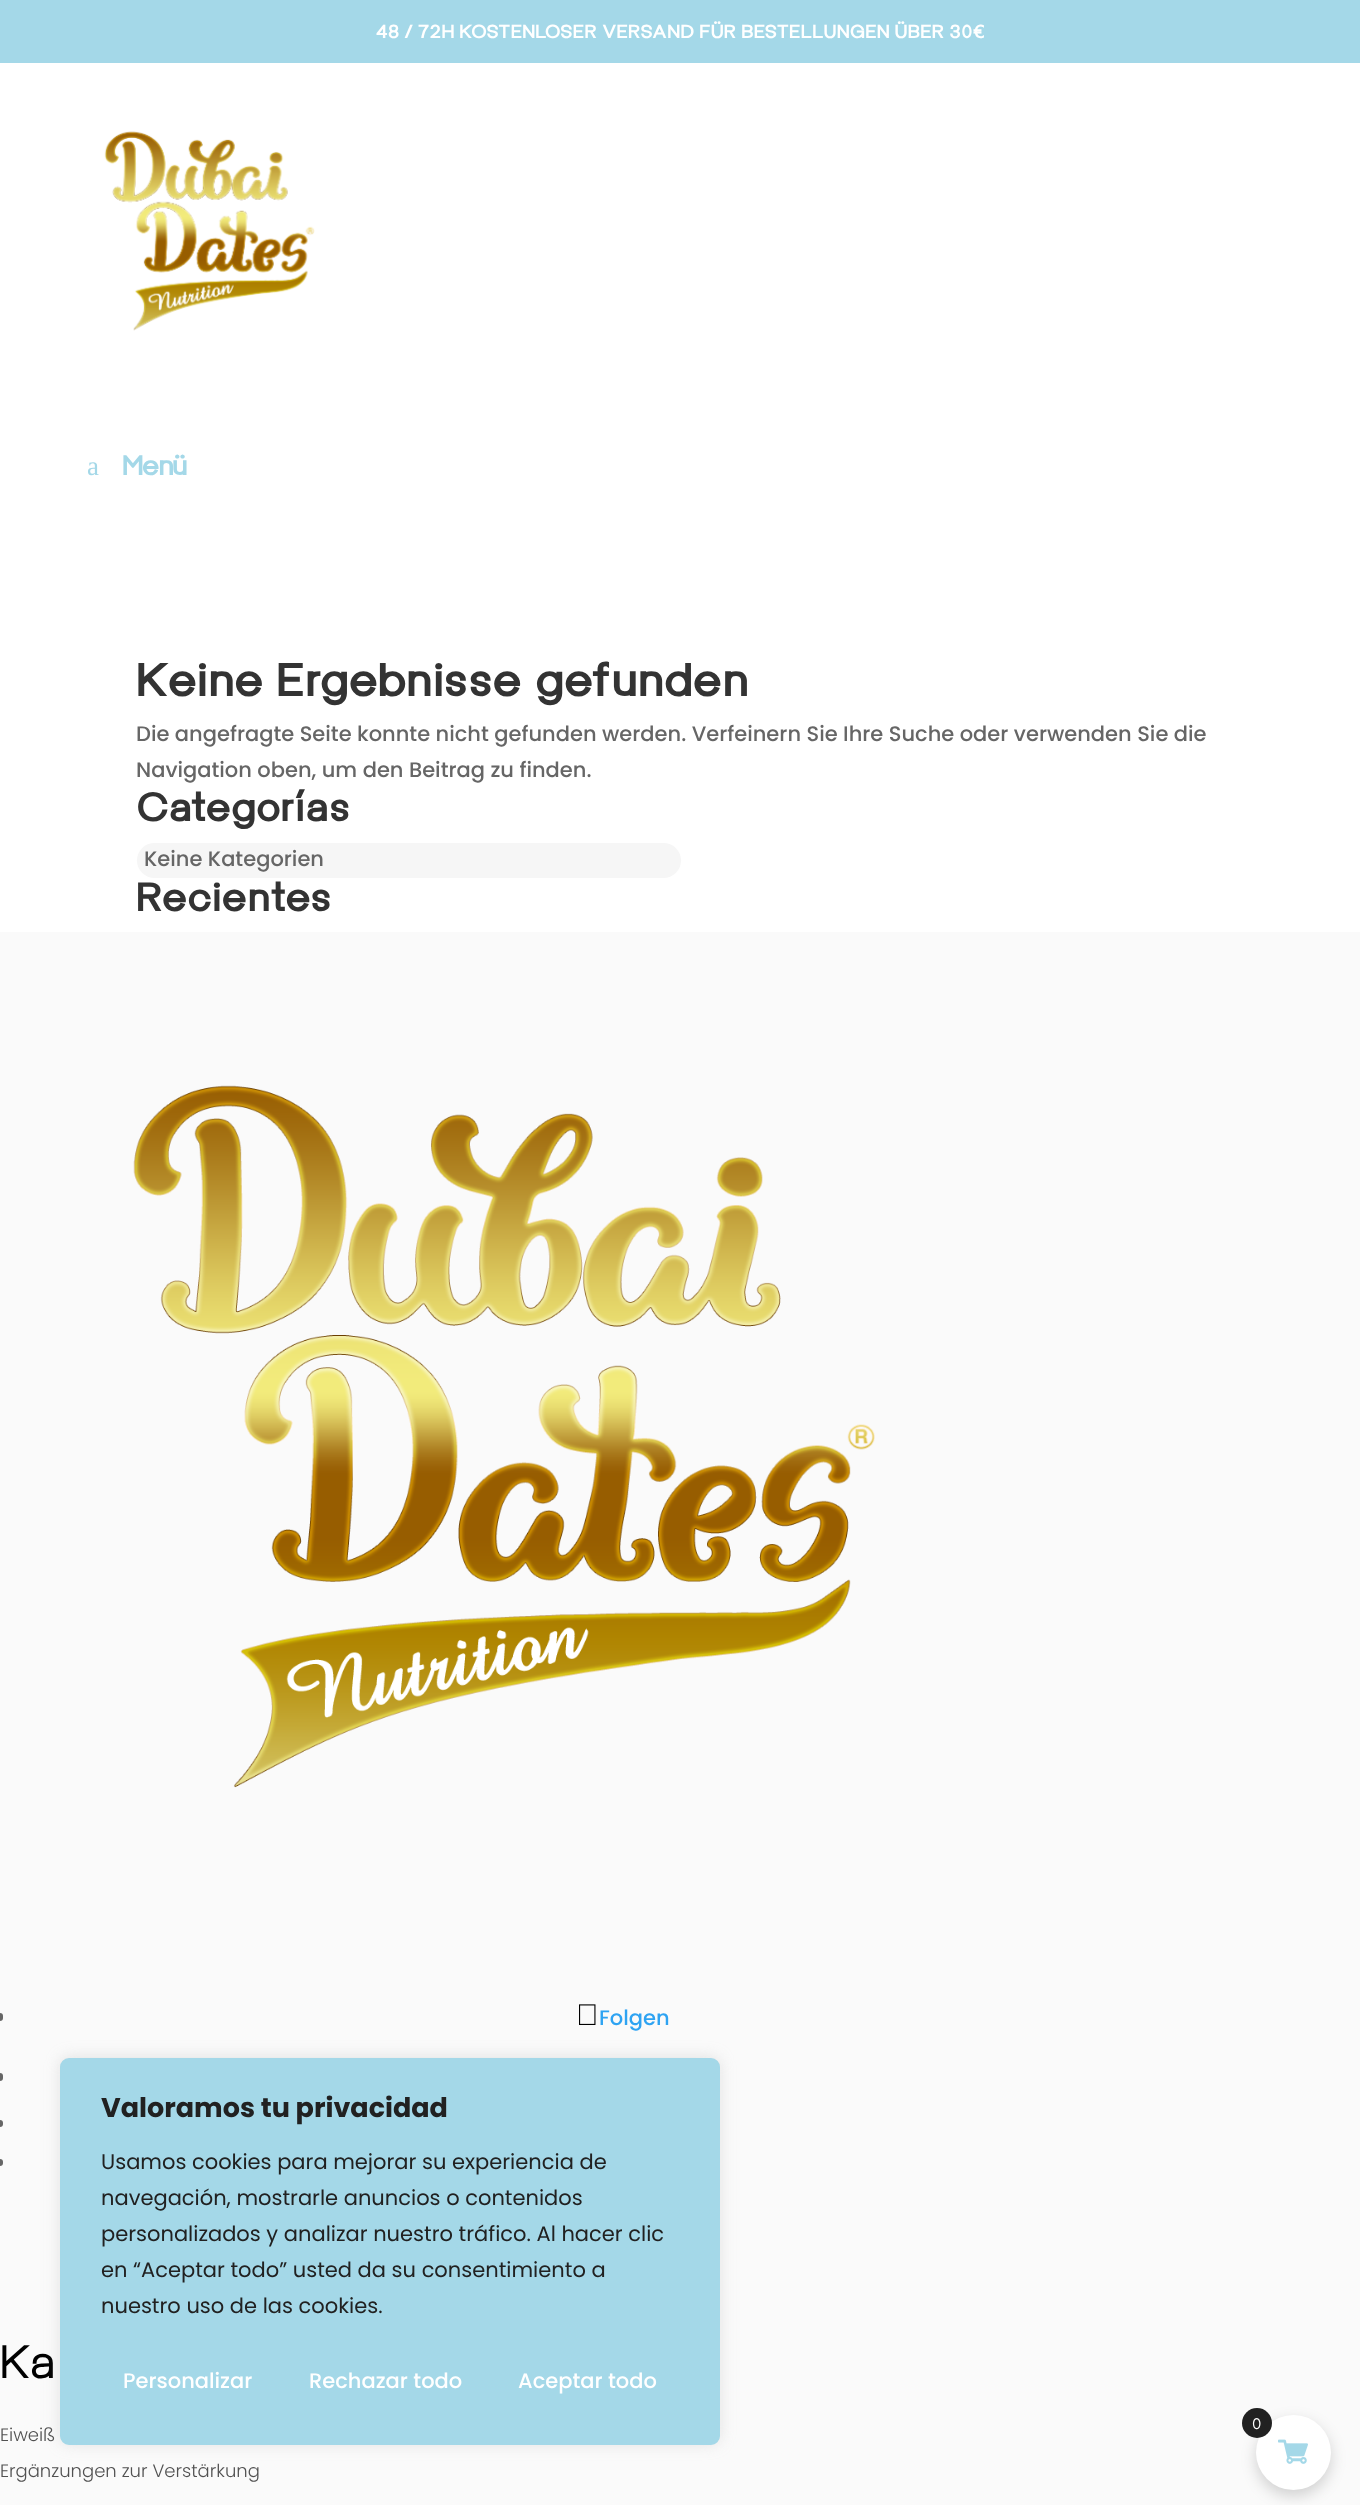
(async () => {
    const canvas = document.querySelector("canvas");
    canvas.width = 1360;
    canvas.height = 2505;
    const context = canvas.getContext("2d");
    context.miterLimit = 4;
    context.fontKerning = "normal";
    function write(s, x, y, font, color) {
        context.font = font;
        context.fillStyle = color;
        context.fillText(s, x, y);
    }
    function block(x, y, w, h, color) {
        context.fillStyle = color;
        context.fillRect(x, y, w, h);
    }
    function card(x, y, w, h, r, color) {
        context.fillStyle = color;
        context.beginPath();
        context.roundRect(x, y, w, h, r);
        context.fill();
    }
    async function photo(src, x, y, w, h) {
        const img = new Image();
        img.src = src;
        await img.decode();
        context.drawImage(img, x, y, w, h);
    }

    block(0, 0, 1360, 2505, "rgb(255, 255, 255)");
    block(0, 0, 1360, 63, "rgb(164, 216, 232)");
    write("48 / 72H KOSTENLOSER VERSAND FÜR BESTELLUNGEN ÜBER 30€", 376, 38, "bold 18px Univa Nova", "rgb(255, 255, 255)");
    await photo("media/1.png", 104, 131, 211, 200);
    context.letterSpacing = "-1.5px";
    write("a", 87, 475, "27px Liberation Serif", "rgb(164, 216, 232)");
    write("Menü", 122, 475, "bold 27px Univa Nova", "rgb(164, 216, 232)");
    context.letterSpacing = "0px";
    write("Keine Ergebnisse gefunden", 136, 696, "bold 45px Univa Nova", "rgb(51, 51, 51)");
    write("Die angefragte Seite konnte nicht gefunden werden. Verfeinern Sie Ihre Suche oder verwenden Sie die", 136, 741, "500 21px Poppins", "rgb(102, 102, 102)");
    write("Navigation oben, um den Beitrag zu finden.", 136, 777, "500 21px Poppins", "rgb(102, 102, 102)");
    write("Categorías", 136, 821, "bold 39px Univa Nova", "rgb(51, 51, 51)");
    card(137, 843, 544, 35, 17.5, "rgb(246, 246, 246)");
    write("Keine Kategorien", 144, 866, "500 21px Poppins", "rgb(102, 102, 102)");
    write("Recientes", 136, 911, "bold 39px Univa Nova", "rgb(51, 51, 51)");
    block(0, 932, 1360, 1573, "rgb(250, 250, 250)");
    await photo("media/2.png", 133, 1085, 742, 703);
    context.fillStyle = "rgb(102, 102, 102)";
    context.beginPath();
    context.roundRect(0, 2013, 3, 8, [0, 3.5, 3.5, 0]);
    context.fill();
    await photo("media/3.png", 579, 2004, 17, 21);
    write("Folgen", 599, 2025, "500 21px Poppins", "rgb(46, 163, 242)");
    context.fillStyle = "rgb(102, 102, 102)";
    context.beginPath();
    context.roundRect(0, 2073, 3, 8, [0, 3.5, 3.5, 0]);
    context.fill();
    context.beginPath();
    context.roundRect(0, 2120, 3, 7, [0, 3.5, 3.5, 0]);
    context.fill();
    context.beginPath();
    context.roundRect(0, 2159, 3, 7, [0, 3.5, 3.5, 0]);
    context.fill();
    write("Ka", 0, 2378, "500 45px Univa Nova", "rgb(0, 0, 0)");
    write("Eiweiß", 0, 2441, "300 18px Poppins", "rgb(81, 81, 81)");
    write("Ergänzungen zur Verstärkung", 0, 2477, "300 18px Poppins", "rgb(81, 81, 81)");
    context.fillStyle = "rgba(172, 171, 171, 0.3)";
    context.filter = "blur(7.5px)";
    context.beginPath();
    context.roundRect(60, 2057, 660, 387, 9);
    context.fill();
    context.filter = "none";
    context.fillStyle = "rgb(164, 216, 232)";
    context.beginPath();
    context.roundRect(61, 2059, 658, 385, 8);
    context.fill();
    context.strokeStyle = "rgb(164, 216, 232)";
    context.lineWidth = 2;
    context.stroke();
    write("Valoramos tu privacidad", 101, 2117, "bold 27px Poppins", "rgb(33, 33, 33)");
    write("Usamos cookies para mejorar su experiencia de", 101, 2169, "21px Poppins", "rgb(33, 33, 33)");
    write("navegación, mostrarle anuncios o contenidos", 101, 2205, "21px Poppins", "rgb(33, 33, 33)");
    write("personalizados y analizar nuestro tráfico. Al hacer clic", 101, 2241, "21px Poppins", "rgb(33, 33, 33)");
    write("en “Aceptar todo” usted da su consentimiento a", 101, 2277, "21px Poppins", "rgb(33, 33, 33)");
    write("nuestro uso de las cookies.", 101, 2313, "21px Poppins", "rgb(33, 33, 33)");
    write("Personalizar", 123, 2388, "500 21px Poppins", "rgb(255, 255, 255)");
    write("Rechazar todo", 309, 2388, "500 21px Poppins", "rgb(255, 255, 255)");
    write("Aceptar todo", 518, 2388, "500 21px Poppins", "rgb(255, 255, 255)");
    context.fillStyle = "rgba(0, 0, 0, 0.17)";
    context.filter = "blur(7.5px)";
    context.beginPath();
    context.roundRect(1256, 2421, 75, 75, 37.5);
    context.fill();
    context.filter = "none";
    context.fillStyle = "rgb(255, 255, 255)";
    context.beginPath();
    context.arc(1293.5, 2452.5, 37.5, 0, Math.PI * 2);
    context.fill();
    context.fillStyle = "rgb(33, 33, 33)";
    context.beginPath();
    context.arc(1257, 2423, 15, 0, Math.PI * 2);
    context.fill();
    write("0", 1252, 2429, "500 15px Univa Nova", "rgb(255, 255, 255)");
    await photo("media/4.png", 1278, 2439, 30, 25);
})();
